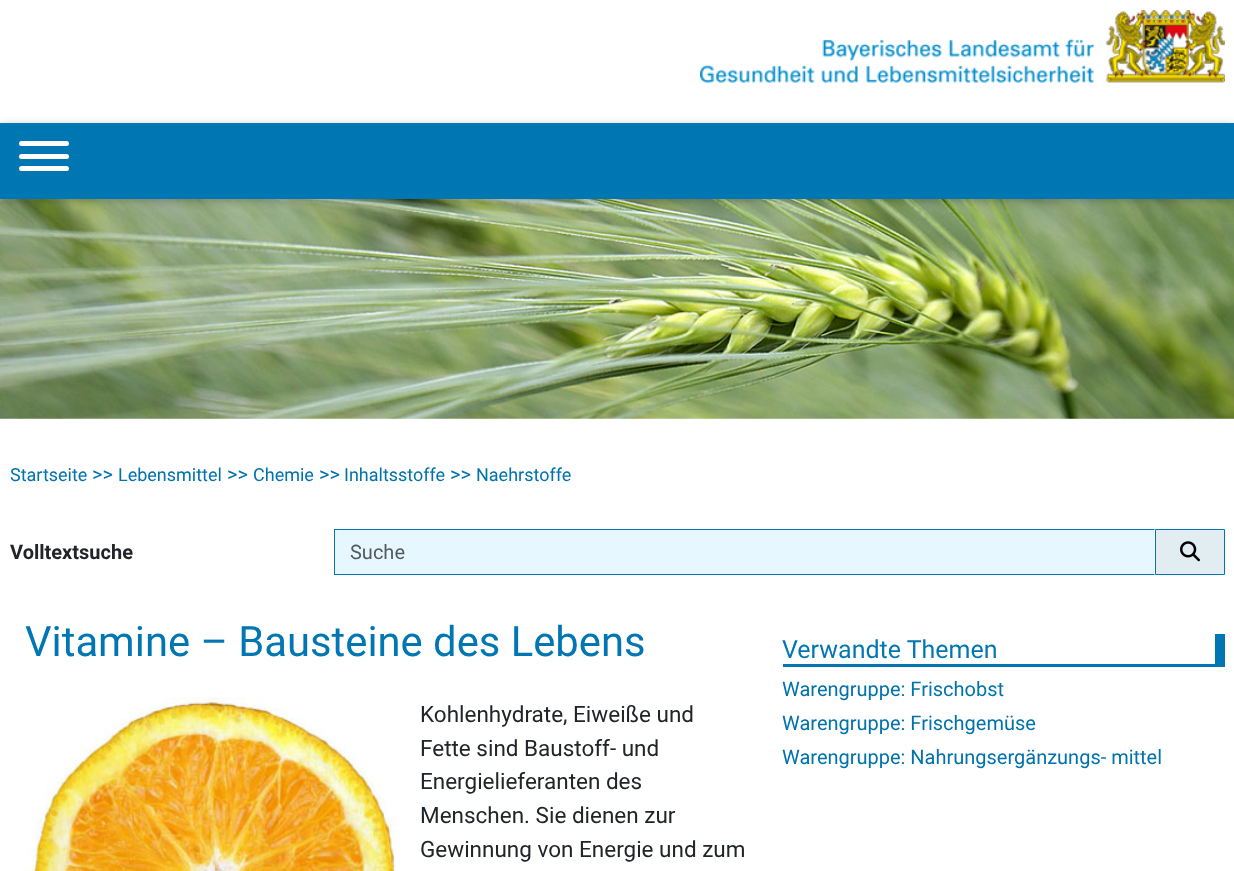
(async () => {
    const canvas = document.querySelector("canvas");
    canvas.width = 1234;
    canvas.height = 871;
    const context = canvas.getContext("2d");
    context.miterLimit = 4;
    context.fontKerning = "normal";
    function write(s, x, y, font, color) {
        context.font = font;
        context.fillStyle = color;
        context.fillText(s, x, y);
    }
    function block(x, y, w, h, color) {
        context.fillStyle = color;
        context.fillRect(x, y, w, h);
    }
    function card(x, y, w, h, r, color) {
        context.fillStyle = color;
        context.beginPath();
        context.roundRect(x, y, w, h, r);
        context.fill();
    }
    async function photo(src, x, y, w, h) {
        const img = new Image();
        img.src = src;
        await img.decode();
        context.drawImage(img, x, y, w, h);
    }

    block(0, 0, 1234, 871, "rgb(255, 255, 255)");
    await photo("media/1.png", 700, 10, 525, 73);
    await photo("media/2.png", 0, 199, 1234, 220);
    context.fillStyle = "rgba(0, 0, 0, 0.25)";
    context.filter = "blur(4px)";
    context.beginPath();
    context.rect(0, 125, 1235, 76);
    context.fill();
    context.filter = "none";
    block(0, 123, 1234, 76, "rgb(0, 119, 178)");
    card(19, 154, 50, 5, 2.5, "rgb(255, 255, 255)");
    card(19, 141, 50, 5, 2.5, "rgb(255, 255, 255)");
    card(19, 166, 50, 5, 2.5, "rgb(255, 255, 255)");
    write("Startseite", 10, 481, "18px Roboto", "rgb(0, 114, 172)");
    write(">>", 92, 481, "20px Roboto", "rgb(0, 114, 172)");
    write("Lebensmittel", 118, 481, "18px Roboto", "rgb(0, 114, 172)");
    write(">>", 227, 481, "20px Roboto", "rgb(0, 114, 172)");
    write("Chemie", 253, 481, "18px Roboto", "rgb(0, 114, 172)");
    write(">>", 319, 481, "20px Roboto", "rgb(0, 114, 172)");
    write("Inhaltsstoffe", 344, 481, "18px Roboto", "rgb(0, 114, 172)");
    write(">>", 450, 481, "20px Roboto", "rgb(0, 114, 172)");
    write("Naehrstoffe", 476, 481, "18px Roboto", "rgb(0, 114, 172)");
    write("Volltextsuche", 10, 559, "bold 20px Roboto", "rgb(33, 37, 41)");
    block(335, 530, 819, 44, "rgb(231, 247, 255)");
    context.fillStyle = "rgb(0, 119, 178)";
    context.beginPath();
    context.moveTo(334, 529);
    context.lineTo(1155, 529);
    context.lineTo(1154, 530);
    context.lineTo(335, 530);
    context.closePath();
    context.fill();
    context.beginPath();
    context.moveTo(1155, 575);
    context.lineTo(334, 575);
    context.lineTo(335, 574);
    context.lineTo(1154, 574);
    context.closePath();
    context.fill();
    block(334, 529, 1, 46, "rgb(0, 119, 178)");
    write("Suche", 350, 559, "20px Roboto", "rgb(83, 90, 95)");
    context.fillStyle = "rgb(226, 237, 242)";
    context.beginPath();
    context.rect(1155.5, 529.5, 69, 45);
    context.fill();
    context.strokeStyle = "rgb(0, 119, 178)";
    context.stroke();
    await photo("media/3.png", 1180, 541, 20, 21);
    write("Vitamine – Bausteine des Lebens", 25, 656, "41.8px Roboto", "rgb(0, 119, 178)");
    await photo("media/4.png", 25, 697, 371, 174);
    write("Kohlenhydrate, Eiweiße und", 420, 722, "22.5px Roboto", "rgb(33, 37, 41)");
    write("Fette sind Baustoff- und", 420, 756, "22.5px Roboto", "rgb(33, 37, 41)");
    write("Energielieferanten des", 420, 789, "22.5px Roboto", "rgb(33, 37, 41)");
    write("Menschen. Sie dienen zur", 420, 823, "22.5px Roboto", "rgb(33, 37, 41)");
    write("Gewinnung von Energie und zum", 420, 857, "22.5px Roboto", "rgb(33, 37, 41)");
    block(1215, 634, 10, 30, "rgb(0, 119, 178)");
    block(783, 664, 442, 3, "rgb(0, 119, 178)");
    write("Verwandte Themen", 782, 658, "25px Roboto", "rgb(0, 119, 178)");
    write("Warengruppe: Frischobst", 782, 696, "20px Roboto", "rgb(0, 114, 172)");
    write("Warengruppe: Frischgemüse", 782, 730, "20px Roboto", "rgb(0, 114, 172)");
    write("Warengruppe: Nahrungsergänzungs- mittel", 782, 764, "20px Roboto", "rgb(0, 114, 172)");
})();
